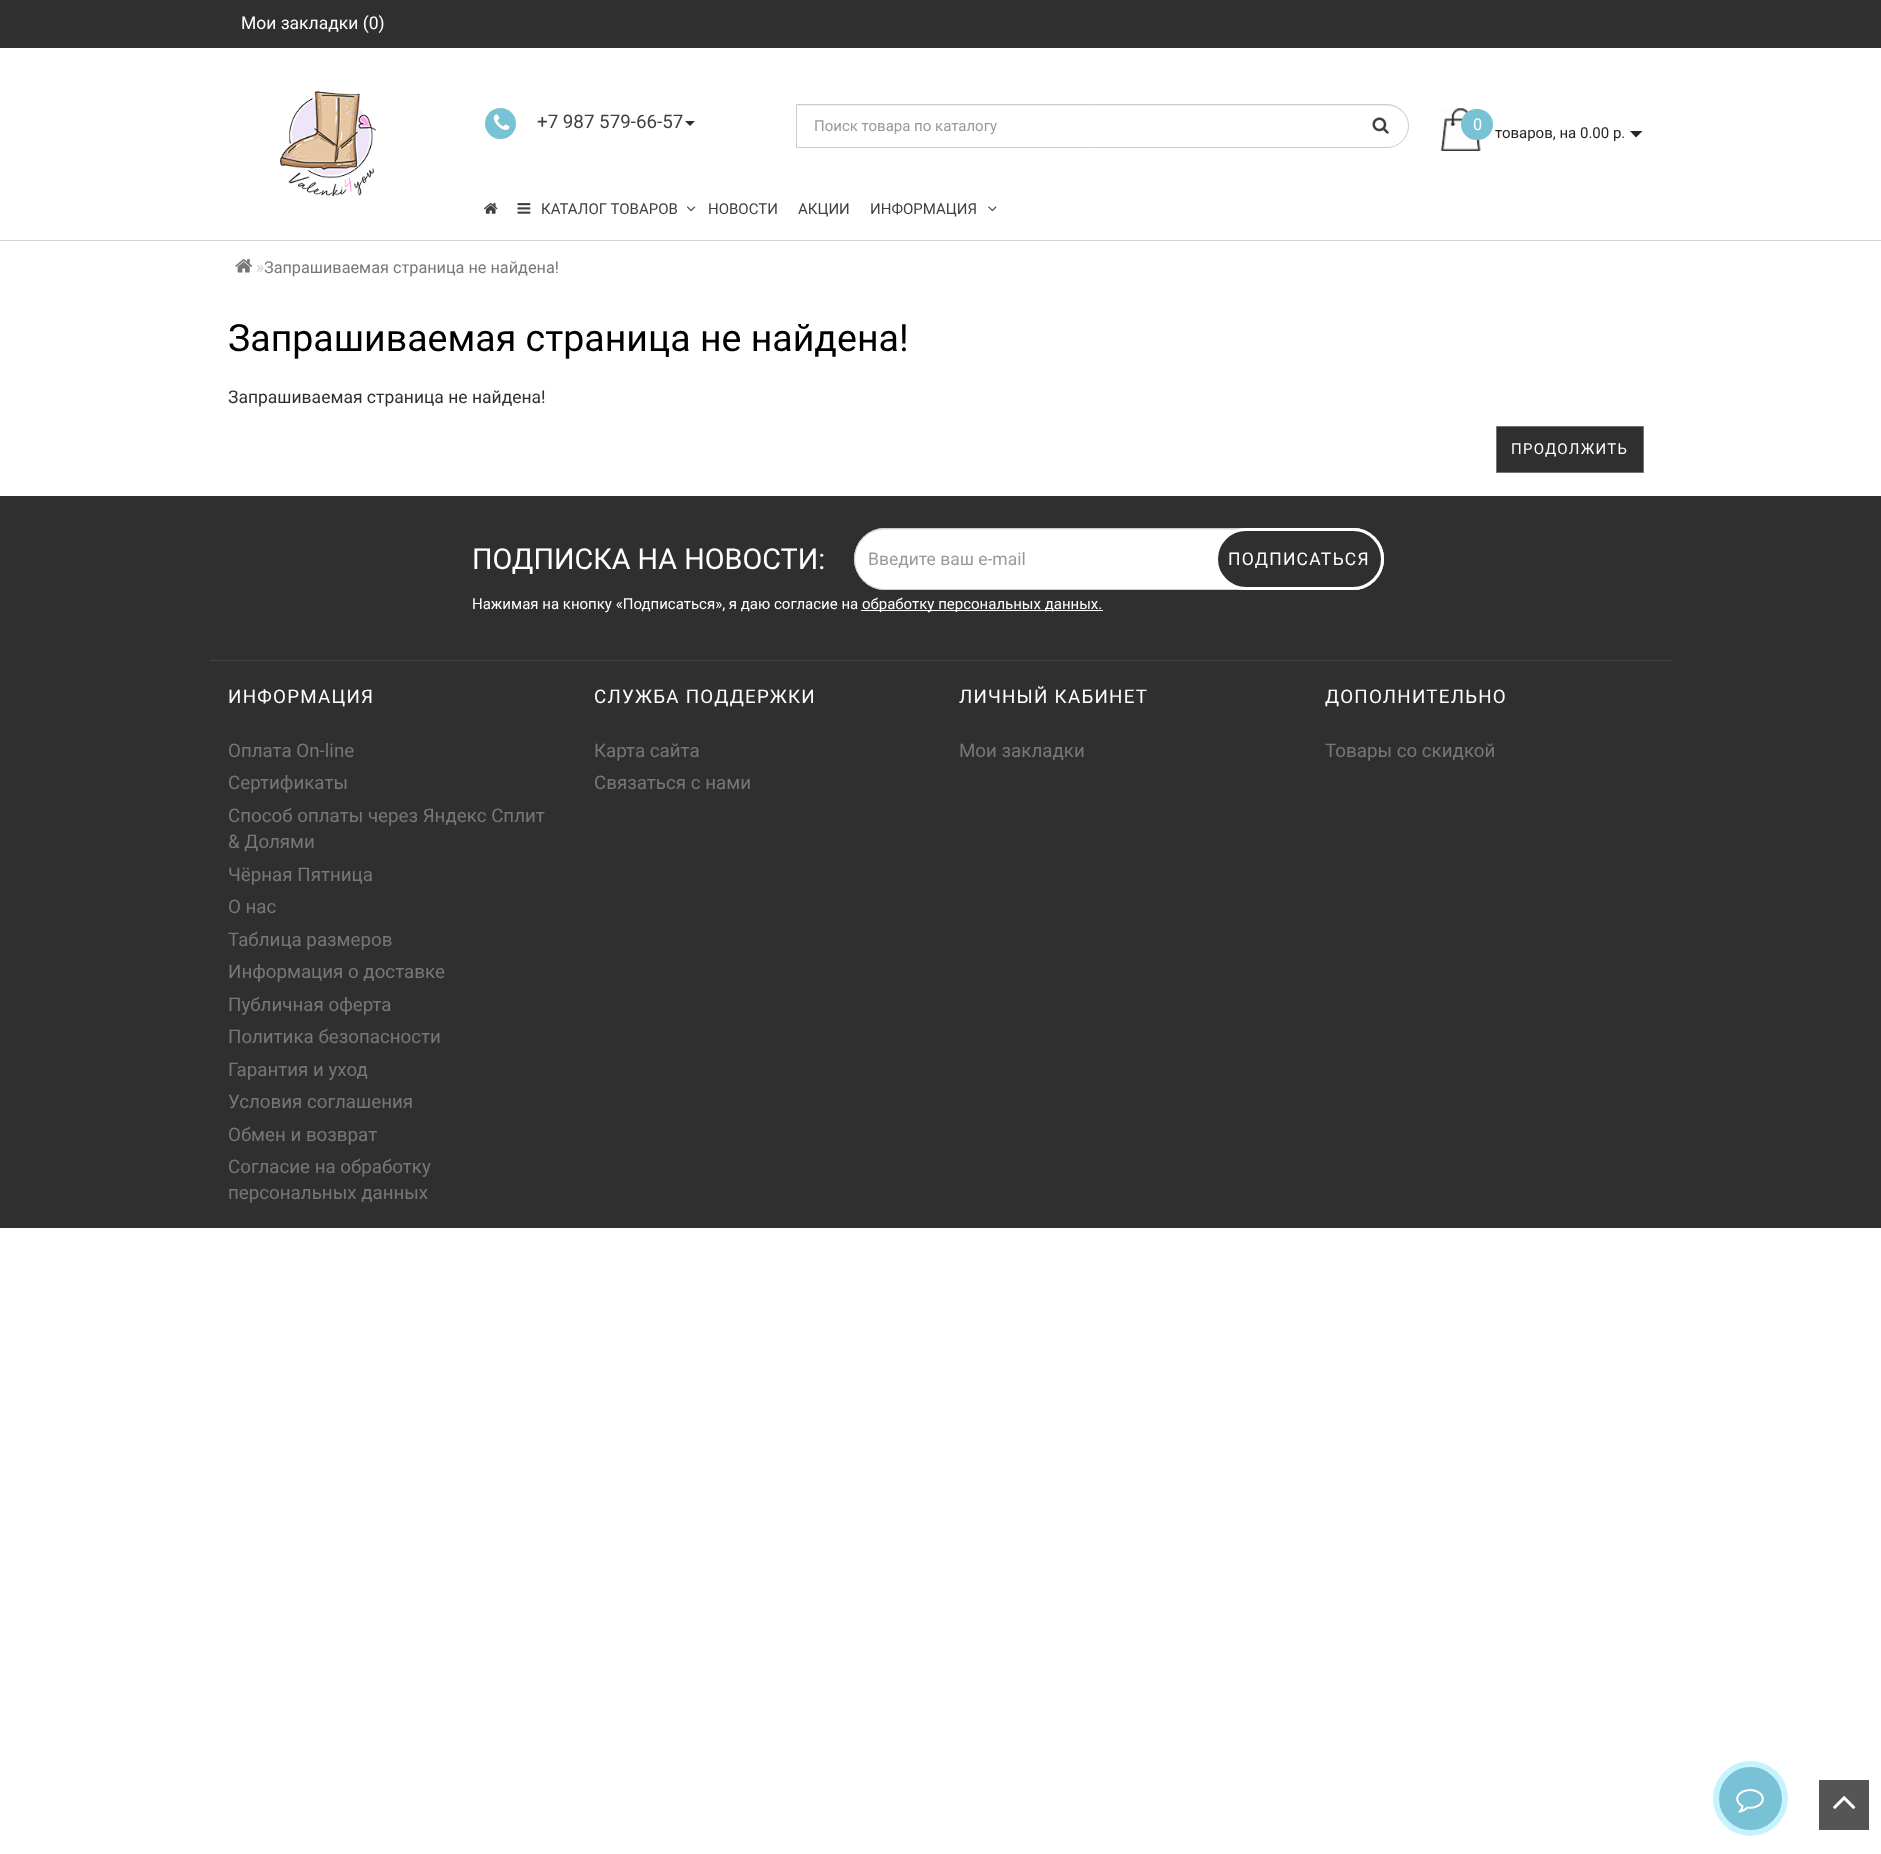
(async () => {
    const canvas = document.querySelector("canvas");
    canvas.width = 1881;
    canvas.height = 1854;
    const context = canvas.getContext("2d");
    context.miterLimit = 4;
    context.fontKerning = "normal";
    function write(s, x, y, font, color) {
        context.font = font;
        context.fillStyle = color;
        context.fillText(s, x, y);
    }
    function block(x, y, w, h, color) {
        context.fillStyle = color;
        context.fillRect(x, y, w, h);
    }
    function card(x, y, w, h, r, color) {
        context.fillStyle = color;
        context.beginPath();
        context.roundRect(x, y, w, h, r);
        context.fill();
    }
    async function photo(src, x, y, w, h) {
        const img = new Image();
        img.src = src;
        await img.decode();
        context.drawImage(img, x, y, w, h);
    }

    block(0, 0, 1881, 1854, "rgb(255, 255, 255)");
    block(0, 0, 1881, 48, "rgb(47, 47, 47)");
    write("Мои закладки (0)", 241, 29, "17.5px Roboto", "rgb(255, 255, 255)");
    block(0, 240, 1881, 1, "rgb(212, 212, 212)");
    await photo("media/1.png", 279, 90, 98, 107);
    context.fillStyle = "rgb(121, 193, 212)";
    context.beginPath();
    context.arc(500.5, 123.5, 15.5, 0, Math.PI * 2);
    context.fill();
    await photo("media/2.png", 493, 114, 17, 16);
    write("+7 987 579-66-57", 537, 128, "18.75px Roboto", "rgb(64, 64, 64)");
    context.fillStyle = "rgb(47, 47, 47)";
    context.beginPath();
    context.moveTo(685, 121);
    context.lineTo(695, 121);
    context.lineTo(690, 126);
    context.closePath();
    context.fill();
    context.fillStyle = "rgb(236, 236, 236)";
    context.beginPath();
    context.moveTo(798, 106);
    context.lineTo(1387, 106);
    context.bezierCurveTo(1398, 106, 1408, 115, 1408, 126);
    context.bezierCurveTo(1408, 115, 1399, 105, 1388, 105);
    context.lineTo(798, 105);
    context.closePath();
    context.fill();
    context.beginPath();
    context.roundRect(796.5, 104.5, 612, 43, [0, 21.5, 21.5, 0]);
    context.strokeStyle = "rgb(204, 204, 204)";
    context.stroke();
    write("Поиск товара по каталогу", 814, 131, "15px Roboto", "rgb(153, 153, 153)");
    await photo("media/3.png", 1372, 117, 17, 17);
    await photo("media/4.png", 484, 203, 14, 11);
    await photo("media/5.png", 517, 203, 14, 11);
    write("КАТАЛОГ ТОВАРОВ", 541, 214, "15px Roboto", "rgb(64, 64, 64)");
    await photo("media/6.png", 687, 206, 9, 6);
    write("НОВОСТИ", 708, 214, "15px Roboto", "rgb(64, 64, 64)");
    write("АКЦИИ", 798, 214, "15px Roboto", "rgb(64, 64, 64)");
    write("ИНФОРМАЦИЯ", 870, 214, "15px Roboto", "rgb(64, 64, 64)");
    await photo("media/7.png", 988, 206, 9, 6);
    await photo("media/8.png", 1440, 108, 41, 43);
    card(1461, 109, 32, 31, 15.5, "rgb(121, 193, 212)");
    write("0", 1473, 130, "16.25px Roboto", "rgb(255, 255, 255)");
    write("товаров, на 0.00 р.", 1495, 138, "15px Roboto", "rgb(42, 38, 35)");
    context.beginPath();
    context.moveTo(1630, 131);
    context.lineTo(1642.5, 131);
    context.lineTo(1636, 137.5);
    context.closePath();
    context.fill();
    await photo("media/9.png", 235, 259, 18, 14);
    write("»", 256, 273, "17.5px Roboto", "rgb(204, 204, 204)");
    write("Запрашиваемая страница не найдена!", 264, 273, "16.25px Roboto", "rgb(119, 119, 119)");
    write("Запрашиваемая страница не найдена!", 228, 351, "37.5px Roboto", "rgb(0, 0, 0)");
    write("Запрашиваемая страница не найдена!", 228, 403, "17.5px Roboto", "rgb(47, 47, 47)");
    context.beginPath();
    context.rect(1496.5, 426.5, 147, 46);
    context.fill();
    context.strokeStyle = "rgb(115, 115, 115)";
    context.stroke();
    context.letterSpacing = "1.25px";
    write("ПРОДОЛЖИТЬ", 1511, 454, "15px Roboto", "rgb(255, 255, 255)");
    block(0, 496, 1881, 732, "rgb(47, 47, 47)");
    context.letterSpacing = "0px";
    write("ПОДПИСКА НА НОВОСТИ:", 472, 569, "28.75px Roboto", "rgb(255, 255, 255)");
    card(854, 528, 530, 62, 31, "rgb(255, 255, 255)");
    context.fillStyle = "rgb(236, 236, 236)";
    context.beginPath();
    context.moveTo(885, 530);
    context.lineTo(1352, 530);
    context.bezierCurveTo(1369, 530, 1382, 543, 1382, 560);
    context.bezierCurveTo(1382, 567, 1380, 573, 1377, 577);
    context.bezierCurveTo(1381, 572, 1383, 566, 1383, 559);
    context.bezierCurveTo(1383, 542, 1370, 529, 1353, 529);
    context.lineTo(885, 529);
    context.bezierCurveTo(868, 529, 855, 542, 855, 559);
    context.bezierCurveTo(855, 543, 868, 530, 885, 530);
    context.closePath();
    context.fill();
    context.beginPath();
    context.roundRect(854.5, 528.5, 529, 61, 30.5);
    context.strokeStyle = "rgb(204, 204, 204)";
    context.stroke();
    write("Введите ваш e-mail", 868, 565, "17.5px Roboto", "rgb(153, 153, 153)");
    context.fillStyle = "rgb(47, 47, 47)";
    context.beginPath();
    context.roundRect(1216.5, 529.5, 166, 59, 29.5);
    context.fill();
    context.strokeStyle = "rgb(255, 255, 255)";
    context.lineWidth = 3;
    context.stroke();
    context.letterSpacing = "1.25px";
    write("ПОДПИСАТЬСЯ", 1228, 565, "17.5px Roboto", "rgb(255, 255, 255)");
    context.letterSpacing = "0px";
    write("Нажимая на кнопку «Подписаться», я даю cогласие на", 472, 609, "15px Roboto", "rgb(255, 255, 255)");
    block(861, 610, 242, 1, "rgb(255, 255, 255)");
    write("обработку персональных данных.", 862, 609, "15px Roboto", "rgb(255, 255, 255)");
    block(210, 660, 1463, 1, "rgb(68, 68, 68)");
    context.letterSpacing = "1.25px";
    write("ИНФОРМАЦИЯ", 228, 703, "18.75px Roboto", "rgb(255, 255, 255)");
    context.letterSpacing = "0px";
    write("Оплата On-line", 228, 757, "18.75px Roboto", "rgb(119, 119, 119)");
    write("Сертификаты", 228, 789, "18.75px Roboto", "rgb(119, 119, 119)");
    write("Способ оплаты через Яндекс Сплит", 228, 822, "18.75px Roboto", "rgb(119, 119, 119)");
    write("& Долями", 228, 848, "18.75px Roboto", "rgb(119, 119, 119)");
    write("Чёрная Пятница", 228, 881, "18.75px Roboto", "rgb(119, 119, 119)");
    write("О нас", 228, 913, "18.75px Roboto", "rgb(119, 119, 119)");
    write("Таблица размеров", 228, 946, "18.75px Roboto", "rgb(119, 119, 119)");
    write("Информация о доставке", 228, 978, "18.75px Roboto", "rgb(119, 119, 119)");
    write("Публичная оферта", 228, 1011, "18.75px Roboto", "rgb(119, 119, 119)");
    write("Политика безопасности", 228, 1043, "18.75px Roboto", "rgb(119, 119, 119)");
    write("Гарантия и уход", 228, 1076, "18.75px Roboto", "rgb(119, 119, 119)");
    write("Условия соглашения", 228, 1108, "18.75px Roboto", "rgb(119, 119, 119)");
    write("Обмен и возврат", 228, 1141, "18.75px Roboto", "rgb(119, 119, 119)");
    write("Согласие на обработку", 228, 1173, "18.75px Roboto", "rgb(119, 119, 119)");
    write("персональных данных", 228, 1199, "18.75px Roboto", "rgb(119, 119, 119)");
    context.letterSpacing = "1.25px";
    write("СЛУЖБА ПОДДЕРЖКИ", 594, 703, "18.75px Roboto", "rgb(255, 255, 255)");
    context.letterSpacing = "0px";
    write("Карта сайта", 594, 757, "18.75px Roboto", "rgb(119, 119, 119)");
    write("Связаться с нами", 594, 789, "18.75px Roboto", "rgb(119, 119, 119)");
    context.letterSpacing = "1.25px";
    write("ЛИЧНЫЙ КАБИНЕТ", 959, 703, "18.75px Roboto", "rgb(255, 255, 255)");
    context.letterSpacing = "0px";
    write("Мои закладки", 959, 757, "18.75px Roboto", "rgb(119, 119, 119)");
    context.letterSpacing = "1.25px";
    write("ДОПОЛНИТЕЛЬНО", 1325, 703, "18.75px Roboto", "rgb(255, 255, 255)");
    context.letterSpacing = "0px";
    write("Товары со скидкой", 1325, 757, "18.75px Roboto", "rgb(119, 119, 119)");
    context.fillStyle = "rgb(121, 193, 212)";
    context.beginPath();
    context.arc(1750.5, 1798.5, 34.5, 0, Math.PI * 2);
    context.fill();
    context.strokeStyle = "rgb(199, 243, 255)";
    context.lineWidth = 6;
    context.stroke();
    await photo("media/10.png", 1736, 1789, 28, 24);
    block(1819, 1780, 50, 50, "rgb(85, 85, 85)");
    await photo("media/11.png", 1833, 1796, 23, 13);
})();
